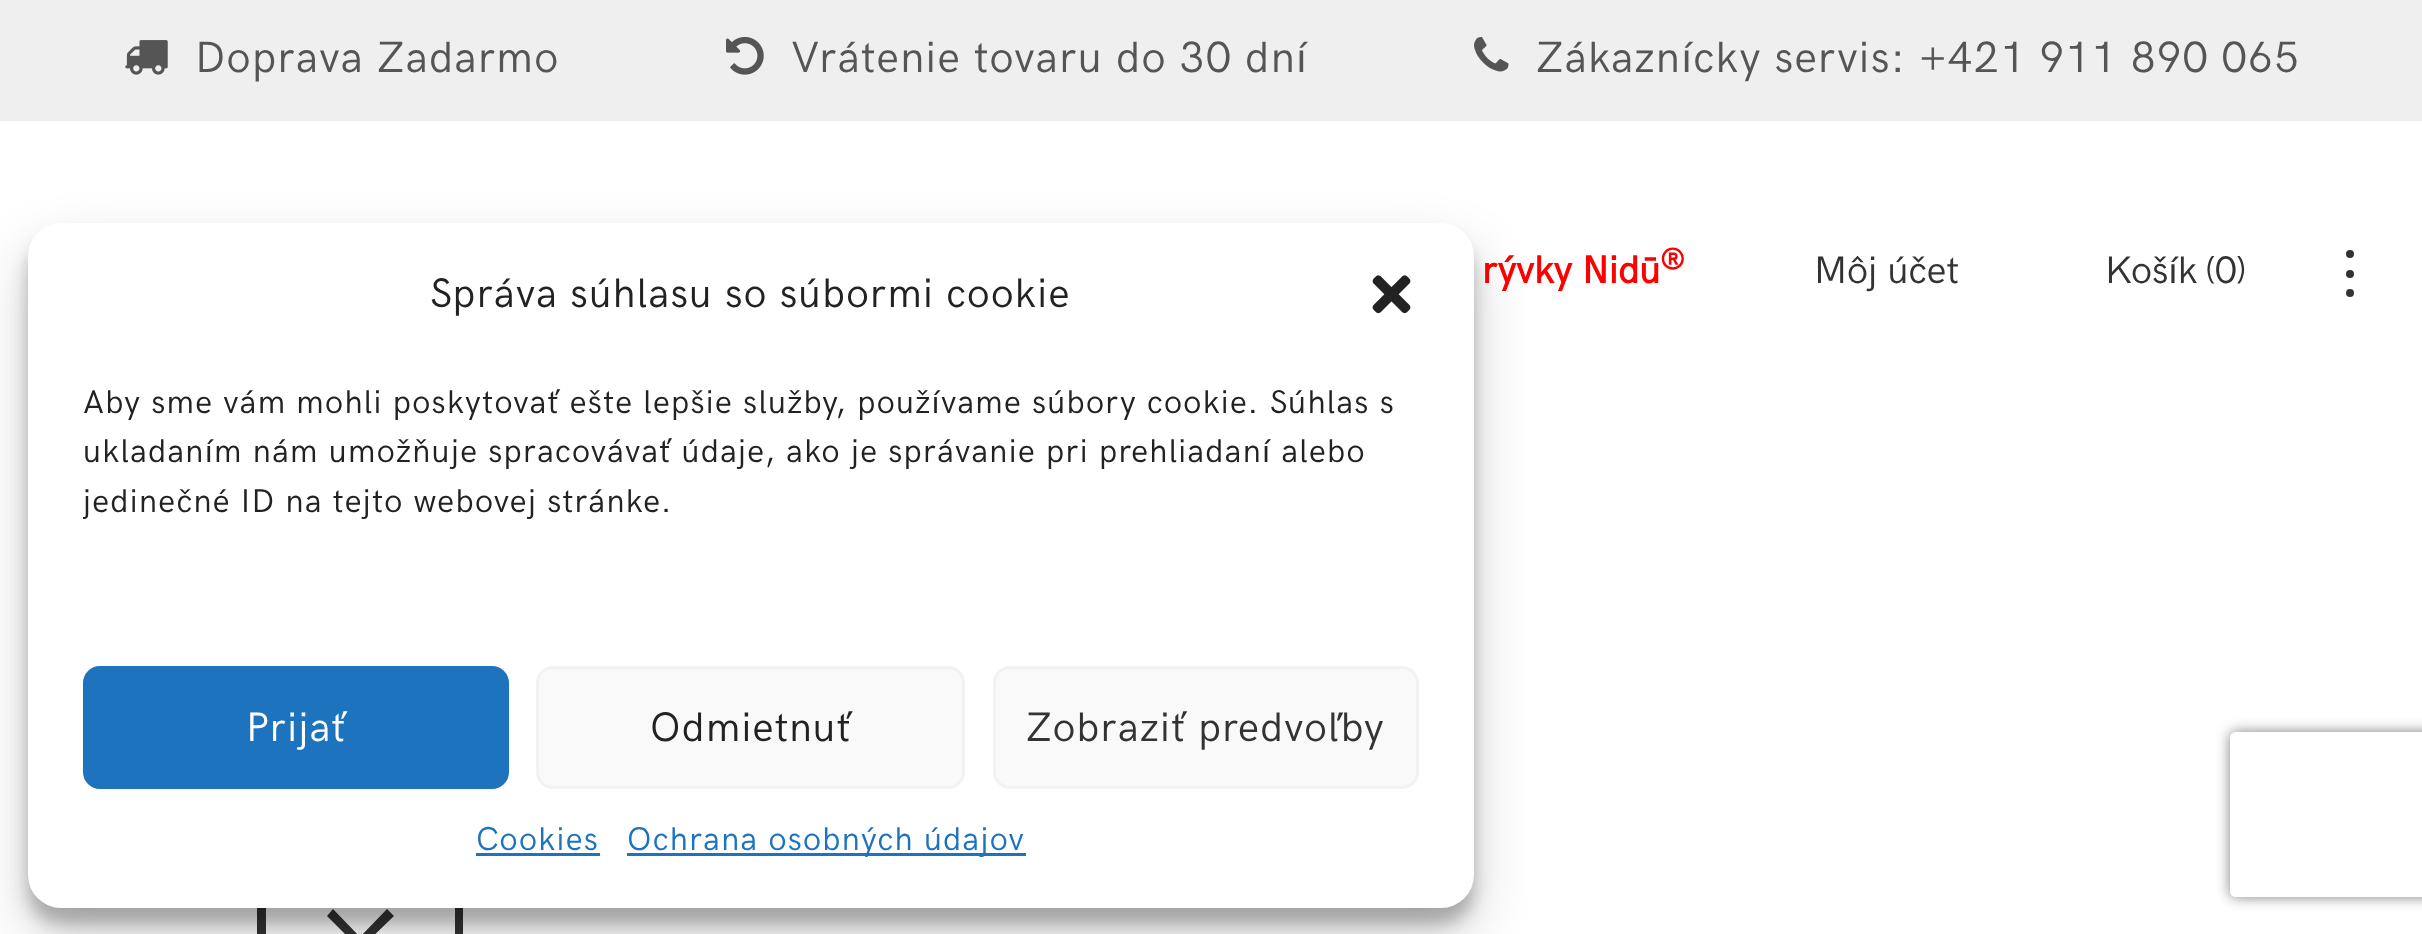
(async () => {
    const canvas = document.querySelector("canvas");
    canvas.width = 2422;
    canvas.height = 934;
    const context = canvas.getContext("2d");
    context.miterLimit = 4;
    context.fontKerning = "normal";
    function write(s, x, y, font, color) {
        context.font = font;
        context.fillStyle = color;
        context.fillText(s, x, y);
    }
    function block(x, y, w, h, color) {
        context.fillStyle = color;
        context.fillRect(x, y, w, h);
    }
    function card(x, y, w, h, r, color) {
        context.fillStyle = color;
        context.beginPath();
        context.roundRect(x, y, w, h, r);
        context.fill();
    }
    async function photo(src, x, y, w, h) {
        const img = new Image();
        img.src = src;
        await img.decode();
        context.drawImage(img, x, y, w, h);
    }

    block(0, 0, 2422, 934, "rgb(255, 255, 255)");
    block(0, 0, 2422, 121, "rgb(239, 239, 239)");
    await photo("media/1.png", 125, 40, 43, 35);
    context.letterSpacing = "1.32px";
    write("Doprava Zadarmo", 195, 72, "44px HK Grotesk", "rgb(85, 85, 85)");
    await photo("media/2.png", 726, 36, 38, 39);
    write("Vrátenie tovaru do 30 dní", 791, 72, "44px HK Grotesk", "rgb(85, 85, 85)");
    await photo("media/3.png", 1474, 36, 35, 36);
    write("Zákaznícky servis: +421 911 890 065", 1536, 72, "44px HK Grotesk", "rgb(85, 85, 85)");
    context.letterSpacing = "0px";
    write("rývky Nidū", 1482, 283, "bold 38.5px HK Grotesk", "rgb(255, 0, 0)");
    write("®", 1660, 269, "bold 29px HK Grotesk", "rgb(255, 0, 0)");
    write("Môj účet", 1814, 283, "38.5px HK Grotesk", "rgb(51, 51, 51)");
    write("Košík", 2105, 283, "38.5px HK Grotesk", "rgb(51, 51, 51)");
    write("(", 2205, 283, "38.5px HK Grotesk", "rgb(51, 51, 51)");
    write("0", 2215, 283, "38.5px HK Grotesk", "rgb(51, 51, 51)");
    write(")", 2236, 283, "38.5px HK Grotesk", "rgb(51, 51, 51)");
    context.beginPath();
    context.arc(2350, 274, 4, 0, Math.PI * 2);
    context.fill();
    context.beginPath();
    context.arc(2350, 254, 4, 0, Math.PI * 2);
    context.fill();
    context.beginPath();
    context.arc(2350, 293, 4, 0, Math.PI * 2);
    context.fill();
    context.beginPath();
    context.moveTo(463, 784);
    context.lineTo(463, 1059);
    context.lineTo(257, 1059);
    context.lineTo(257, 847);
    context.lineTo(320, 784);
    context.closePath();
    context.moveTo(317, 798);
    context.lineTo(272, 844);
    context.lineTo(317, 844);
    context.closePath();
    context.moveTo(455, 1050);
    context.lineTo(455, 792);
    context.lineTo(326, 792);
    context.lineTo(326, 852);
    context.lineTo(266, 852);
    context.lineTo(266, 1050);
    context.closePath();
    context.moveTo(327, 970);
    context.lineTo(354, 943);
    context.lineTo(327, 916);
    context.lineTo(333, 909);
    context.lineTo(360, 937);
    context.lineTo(387, 909);
    context.lineTo(394, 916);
    context.lineTo(366, 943);
    context.lineTo(394, 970);
    context.lineTo(387, 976);
    context.lineTo(360, 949);
    context.lineTo(333, 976);
    context.closePath();
    context.fill();
    context.fillStyle = "rgba(0, 0, 0, 0.23)";
    context.filter = "blur(8px)";
    context.beginPath();
    context.roundRect(28, 239, 1446, 685, 33);
    context.fill();
    context.filter = "none";
    context.fillStyle = "rgba(0, 0, 0, 0.19)";
    context.filter = "blur(27.5px)";
    context.beginPath();
    context.roundRect(28, 250, 1446, 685, 33);
    context.fill();
    context.filter = "none";
    card(28, 223, 1446, 685, 33, "rgb(255, 255, 255)");
    context.letterSpacing = "1.32px";
    write("Správa súhlasu so súbormi cookie", 430, 307, "41.25px HK Grotesk", "rgb(34, 34, 34)");
    await photo("media/4.png", 1372, 275, 39, 39);
    write("Aby sme vám mohli poskytovať ešte lepšie služby, používame súbory cookie. Súhlas s", 83, 413, "33px HK Grotesk", "rgb(34, 34, 34)");
    write("ukladaním nám umožňuje spracovávať údaje, ako je správanie pri prehliadaní alebo", 83, 462, "33px HK Grotesk", "rgb(34, 34, 34)");
    context.save();
    context.beginPath();
    context.rect(83, 380, 1336, 231);
    context.clip();
    write("jedinečné ID na tejto webovej stránke.", 83, 512, "33px HK Grotesk", "rgb(34, 34, 34)");
    context.restore();
    context.fillStyle = "rgb(30, 115, 190)";
    context.beginPath();
    context.roundRect(84.5, 667.5, 423, 120, 15.5);
    context.fill();
    context.strokeStyle = "rgb(30, 115, 190)";
    context.lineWidth = 3;
    context.stroke();
    write("Prijať", 246, 741, "41.25px HK Grotesk", "rgb(255, 255, 255)");
    context.fillStyle = "rgb(249, 249, 249)";
    context.beginPath();
    context.roundRect(537.5, 667.5, 426, 120, 15.5);
    context.fill();
    context.strokeStyle = "rgb(242, 242, 242)";
    context.stroke();
    write("Odmietnuť", 650, 741, "41.25px HK Grotesk", "rgb(34, 34, 34)");
    context.fillStyle = "rgb(249, 249, 249)";
    context.beginPath();
    context.roundRect(994.5, 667.5, 423, 120, 15.5);
    context.fill();
    context.stroke();
    write("Zobraziť predvoľby", 1026, 741, "41.25px HK Grotesk", "rgb(51, 51, 51)");
    write("Cookies", 476, 850, "33px HK Grotesk", "rgb(30, 115, 190)");
    block(476, 853, 124, 3, "rgb(30, 115, 190)");
    block(627, 853, 399, 3, "rgb(30, 115, 190)");
    write("Ochrana osobných údajov", 627, 850, "33px HK Grotesk", "rgb(30, 115, 190)");
    context.save();
    context.beginPath();
    context.moveTo(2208, 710);
    context.lineTo(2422, 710);
    context.lineTo(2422, 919);
    context.lineTo(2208, 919);
    context.closePath();
    context.moveTo(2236, 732);
    context.lineTo(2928, 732);
    context.bezierCurveTo(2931.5, 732, 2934, 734.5, 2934, 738);
    context.lineTo(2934, 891);
    context.bezierCurveTo(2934, 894.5, 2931.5, 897, 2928, 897);
    context.lineTo(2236, 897);
    context.bezierCurveTo(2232.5, 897, 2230, 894.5, 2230, 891);
    context.lineTo(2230, 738);
    context.bezierCurveTo(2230, 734.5, 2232.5, 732, 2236, 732);
    context.closePath();
    context.clip("evenodd");
    context.fillStyle = "rgb(128, 128, 128)";
    context.filter = "blur(7px)";
    context.beginPath();
    context.roundRect(2230, 732, 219, 165, 6);
    context.fill();
    context.filter = "none";
    context.restore();
})();
